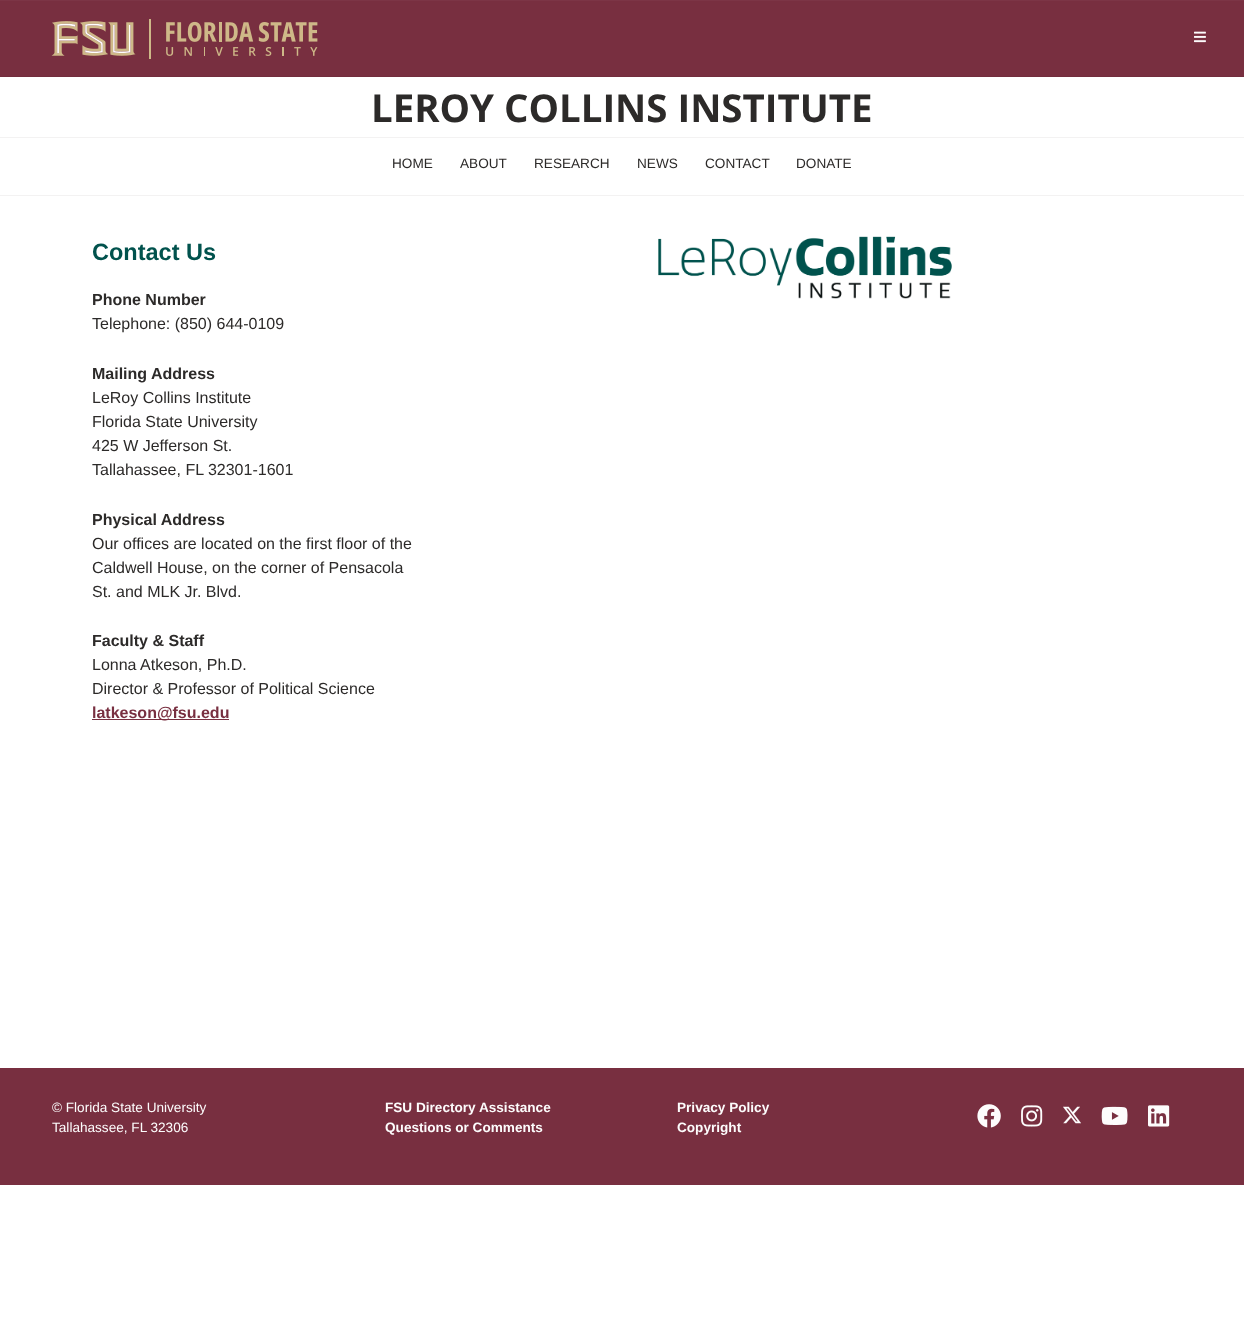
(async () => {
    const canvas = document.querySelector("canvas");
    canvas.width = 1244;
    canvas.height = 1342;
    const context = canvas.getContext("2d");
    context.miterLimit = 4;
    context.fontKerning = "normal";
    function write(s, x, y, font, color) {
        context.font = font;
        context.fillStyle = color;
        context.fillText(s, x, y);
    }
    function block(x, y, w, h, color) {
        context.fillStyle = color;
        context.fillRect(x, y, w, h);
    }
    async function photo(src, x, y, w, h) {
        const img = new Image();
        img.src = src;
        await img.decode();
        context.drawImage(img, x, y, w, h);
    }

    block(0, 0, 1244, 1342, "rgb(255, 255, 255)");
    block(0, 1, 1244, 75, "rgb(120, 47, 64)");
    block(0, 0, 1244, 1, "rgb(124, 53, 70)");
    block(0, 76, 1244, 1, "rgb(114, 45, 61)");
    await photo("media/1.png", 51, 19, 267, 40);
    await photo("media/2.png", 1194, 31, 12, 12);
    block(0, 137, 1244, 1, "rgb(243, 242, 242)");
    write("LEROY COLLINS INSTITUTE", 371, 122, "bold 38.4px Open Sans", "rgb(44, 42, 41)");
    block(0, 195, 1244, 1, "rgb(243, 242, 242)");
    write("HOME", 392, 168, "13.6px Liberation Sans", "rgb(44, 42, 41)");
    write("ABOUT", 460, 168, "13.6px Liberation Sans", "rgb(44, 42, 41)");
    write("RESEARCH", 534, 168, "13.6px Liberation Sans", "rgb(44, 42, 41)");
    write("NEWS", 637, 168, "13.6px Liberation Sans", "rgb(44, 42, 41)");
    write("CONTACT", 705, 168, "13.6px Liberation Sans", "rgb(44, 42, 41)");
    write("DONATE", 796, 168, "13.6px Liberation Sans", "rgb(44, 42, 41)");
    write("Contact Us", 92, 260, "bold 23.5px Liberation Sans", "rgb(1, 82, 77)");
    write("Phone Number", 92, 305, "bold 16px Liberation Sans", "rgb(44, 42, 41)");
    write("Telephone: (850) 644-0109", 92, 329, "16px Liberation Sans", "rgb(44, 42, 41)");
    write("Mailing Address", 92, 379, "bold 16px Liberation Sans", "rgb(44, 42, 41)");
    write("LeRoy Collins Institute", 92, 403, "16px Liberation Sans", "rgb(44, 42, 41)");
    write("Florida State University", 92, 427, "16px Liberation Sans", "rgb(44, 42, 41)");
    write("425 W Jefferson St.", 92, 451, "16px Liberation Sans", "rgb(44, 42, 41)");
    write("Tallahassee, FL 32301-1601", 92, 475, "16px Liberation Sans", "rgb(44, 42, 41)");
    write("Physical Address", 92, 525, "bold 16px Liberation Sans", "rgb(44, 42, 41)");
    write("Our offices are located on the first floor of the", 92, 549, "16px Liberation Sans", "rgb(44, 42, 41)");
    write("Caldwell House, on the corner of Pensacola", 92, 573, "16px Liberation Sans", "rgb(44, 42, 41)");
    write("St. and MLK Jr. Blvd.", 92, 597, "16px Liberation Sans", "rgb(44, 42, 41)");
    write("Faculty & Staff", 92, 646, "bold 16px Liberation Sans", "rgb(44, 42, 41)");
    write("Lonna Atkeson, Ph.D.", 92, 670, "16px Liberation Sans", "rgb(44, 42, 41)");
    write("Director & Professor of Political Science", 92, 694, "16px Liberation Sans", "rgb(44, 42, 41)");
    block(92, 719, 137, 1, "rgb(120, 47, 64)");
    write("latkeson@fsu.edu", 92, 718, "bold 16px Liberation Sans", "rgb(120, 47, 64)");
    await photo("media/3.png", 658, 236, 294, 63);
    block(0, 1068, 1244, 117, "rgb(120, 47, 64)");
    write("© Florida State University", 52, 1112, "13.6px Liberation Sans", "rgb(253, 252, 252)");
    write("Tallahassee, FL 32306", 52, 1132, "13.6px Liberation Sans", "rgb(253, 252, 252)");
    write("FSU Directory Assistance", 385, 1112, "bold 13.6px Liberation Sans", "rgb(253, 252, 252)");
    write("Questions or Comments", 385, 1132, "bold 13.6px Liberation Sans", "rgb(253, 252, 252)");
    write("Privacy Policy", 677, 1112, "bold 13.6px Liberation Sans", "rgb(253, 252, 252)");
    write("Copyright", 677, 1132, "bold 13.6px Liberation Sans", "rgb(253, 252, 252)");
    await photo("media/4.png", 977, 1104, 24, 24);
    await photo("media/5.png", 1021, 1105, 22, 22);
    await photo("media/6.png", 1063, 1106, 18, 18);
    await photo("media/7.png", 1101, 1106, 27, 19);
    await photo("media/8.png", 1148, 1105, 22, 22);
})();
